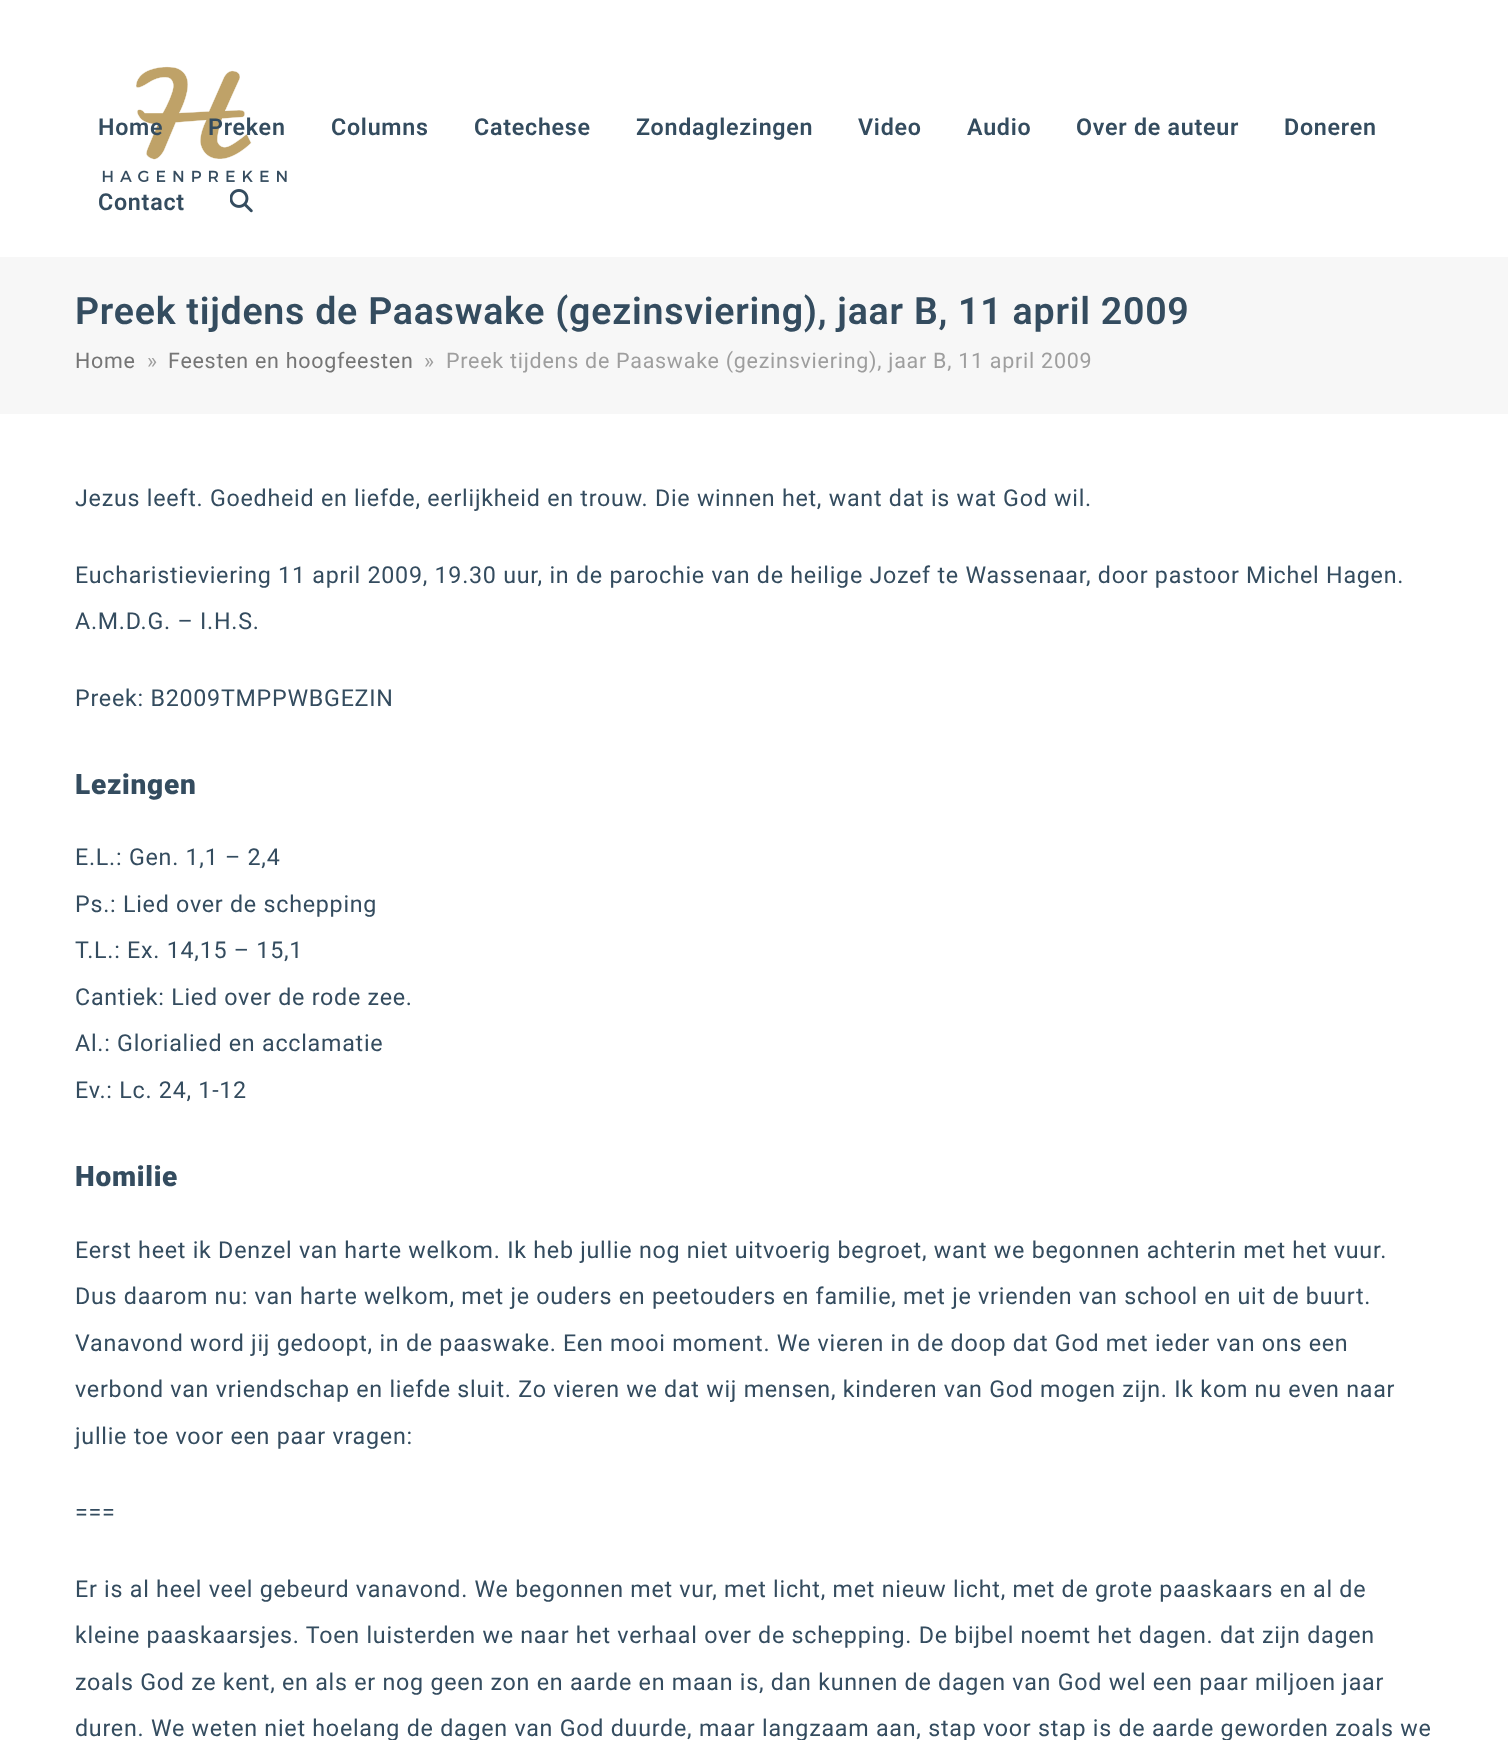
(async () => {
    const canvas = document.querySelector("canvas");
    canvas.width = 1508;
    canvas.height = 1740;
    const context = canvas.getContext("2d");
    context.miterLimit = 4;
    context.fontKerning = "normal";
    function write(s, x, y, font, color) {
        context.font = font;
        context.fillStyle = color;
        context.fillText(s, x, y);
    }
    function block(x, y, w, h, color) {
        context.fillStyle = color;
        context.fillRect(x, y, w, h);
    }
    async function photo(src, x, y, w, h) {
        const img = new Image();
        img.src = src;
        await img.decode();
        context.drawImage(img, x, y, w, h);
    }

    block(0, 0, 1508, 1740, "rgb(255, 255, 255)");
    await photo("media/1.png", 102, 66, 185, 116);
    context.letterSpacing = "0.75px";
    write("Home", 98, 135, "600 23.25px Roboto", "rgb(52, 76, 95)");
    write("Preken", 208, 135, "600 23.25px Roboto", "rgb(52, 76, 95)");
    write("Columns", 331, 135, "600 23.25px Roboto", "rgb(52, 76, 95)");
    write("Catechese", 474, 135, "600 23.25px Roboto", "rgb(52, 76, 95)");
    write("Zondaglezingen", 636, 135, "600 23.25px Roboto", "rgb(52, 76, 95)");
    write("Video", 858, 135, "600 23.25px Roboto", "rgb(52, 76, 95)");
    write("Audio", 967, 135, "600 23.25px Roboto", "rgb(52, 76, 95)");
    write("Over de auteur", 1076, 135, "600 23.25px Roboto", "rgb(52, 76, 95)");
    write("Doneren", 1284, 135, "600 23.25px Roboto", "rgb(52, 76, 95)");
    write("Contact", 98, 210, "600 23.25px Roboto", "rgb(52, 76, 95)");
    await photo("media/2.png", 230, 189, 23, 24);
    block(0, 257, 1508, 157, "rgb(247, 247, 247)");
    write("Preek tijdens de Paaswake (gezinsviering), jaar B, 11 april 2009", 75, 324, "600 37.55px Roboto", "rgb(52, 76, 95)");
    write("Home", 75, 368, "21.45px Roboto", "rgb(117, 117, 117)");
    write("»", 147, 368, "21.45px Roboto", "rgb(158, 158, 158)");
    write("Feesten en hoogfeesten", 168, 368, "21.45px Roboto", "rgb(117, 117, 117)");
    write("»", 424, 368, "21.45px Roboto", "rgb(158, 158, 158)");
    write("Preek tijdens de Paaswake (gezinsviering), jaar B, 11 april 2009", 446, 368, "21.45px Roboto", "rgb(158, 158, 158)");
    write("Jezus leeft. Goedheid en liefde, eerlijkheid en trouw. Die winnen het, want dat is wat God wil.", 75, 506, "23.25px Roboto", "rgb(52, 76, 95)");
    write("Eucharistieviering 11 april 2009, 19.30 uur, in de parochie van de heilige Jozef te Wassenaar, door pastoor Michel Hagen.", 75, 583, "23.25px Roboto", "rgb(52, 76, 95)");
    write("A.M.D.G. – I.H.S.", 75, 629, "23.25px Roboto", "rgb(52, 76, 95)");
    write("Preek: B2009TMPPWBGEZIN", 75, 706, "23.25px Roboto", "rgb(52, 76, 95)");
    write("Lezingen", 75, 794, "900 28px Roboto", "rgb(52, 76, 95)");
    write("E.L.: Gen. 1,1 – 2,4", 75, 865, "23.25px Roboto", "rgb(52, 76, 95)");
    write("Ps.: Lied over de schepping", 75, 912, "23.25px Roboto", "rgb(52, 76, 95)");
    write("T.L.: Ex. 14,15 – 15,1", 75, 958, "23.25px Roboto", "rgb(52, 76, 95)");
    write("Cantiek: Lied over de rode zee.", 75, 1005, "23.25px Roboto", "rgb(52, 76, 95)");
    write("Al.: Glorialied en acclamatie", 75, 1051, "23.25px Roboto", "rgb(52, 76, 95)");
    write("Ev.: Lc. 24, 1-12", 75, 1098, "23.25px Roboto", "rgb(52, 76, 95)");
    write("Homilie", 75, 1186, "900 28px Roboto", "rgb(52, 76, 95)");
    write("Eerst heet ik Denzel van harte welkom. Ik heb jullie nog niet uitvoerig begroet, want we begonnen achterin met het vuur.", 75, 1258, "23.25px Roboto", "rgb(52, 76, 95)");
    write("Dus daarom nu: van harte welkom, met je ouders en peetouders en familie, met je vrienden van school en uit de buurt.", 75, 1304, "23.25px Roboto", "rgb(52, 76, 95)");
    write("Vanavond word jij gedoopt, in de paaswake. Een mooi moment. We vieren in de doop dat God met ieder van ons een", 75, 1351, "23.25px Roboto", "rgb(52, 76, 95)");
    write("verbond van vriendschap en liefde sluit. Zo vieren we dat wij mensen, kinderen van God mogen zijn. Ik kom nu even naar", 75, 1397, "23.25px Roboto", "rgb(52, 76, 95)");
    write("jullie toe voor een paar vragen:", 75, 1444, "23.25px Roboto", "rgb(52, 76, 95)");
    write("===", 75, 1520, "23.25px Roboto", "rgb(52, 76, 95)");
    write("Er is al heel veel gebeurd vanavond. We begonnen met vur, met licht, met nieuw licht, met de grote paaskaars en al de", 75, 1597, "23.25px Roboto", "rgb(52, 76, 95)");
    write("kleine paaskaarsjes. Toen luisterden we naar het verhaal over de schepping. De bijbel noemt het dagen. dat zijn dagen", 75, 1643, "23.25px Roboto", "rgb(52, 76, 95)");
    write("zoals God ze kent, en als er nog geen zon en aarde en maan is, dan kunnen de dagen van God wel een paar miljoen jaar", 75, 1690, "23.25px Roboto", "rgb(52, 76, 95)");
    write("duren. We weten niet hoelang de dagen van God duurde, maar langzaam aan, stap voor stap is de aarde geworden zoals we", 75, 1736, "23.25px Roboto", "rgb(52, 76, 95)");
})();
